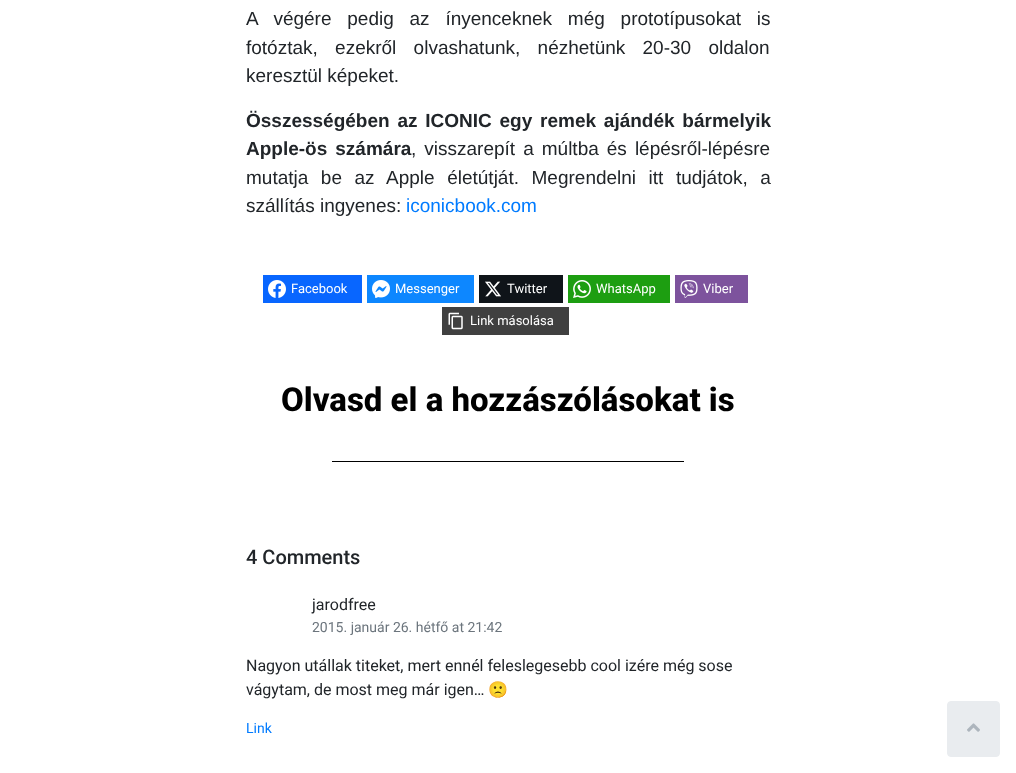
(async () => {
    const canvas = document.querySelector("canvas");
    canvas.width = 1016;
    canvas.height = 773;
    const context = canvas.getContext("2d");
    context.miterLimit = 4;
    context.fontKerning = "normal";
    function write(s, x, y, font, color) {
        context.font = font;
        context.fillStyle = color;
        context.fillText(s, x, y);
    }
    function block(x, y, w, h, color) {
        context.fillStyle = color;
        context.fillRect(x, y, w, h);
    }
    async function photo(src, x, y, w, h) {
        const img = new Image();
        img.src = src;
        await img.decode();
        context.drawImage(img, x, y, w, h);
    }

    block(0, 0, 1016, 773, "rgb(255, 255, 255)");
    context.wordSpacing = "10.5px";
    write("A végére pedig az ínyenceknek még prototípusokat is", 246, 25, "19px Liberation Sans", "rgb(33, 37, 41)");
    context.wordSpacing = "12px";
    write("fotóztak, ezekről olvashatunk, nézhetünk 20-30 oldalon", 246, 54, "19px Liberation Sans", "rgb(33, 37, 41)");
    context.wordSpacing = "0px";
    write("keresztül képeket.", 246, 82, "19px Liberation Sans", "rgb(33, 37, 41)");
    context.wordSpacing = "2.5px";
    write("Összességében az ICONIC egy remek ajándék bármelyik", 246, 127, "bold 19px Liberation Sans", "rgb(33, 37, 41)");
    context.wordSpacing = "2.75px";
    write("Apple-ös számára", 246, 155, "bold 19px Liberation Sans", "rgb(33, 37, 41)");
    write(", visszarepít a múltba és lépésről-lépésre", 411, 155, "19px Liberation Sans", "rgb(33, 37, 41)");
    context.wordSpacing = "7.25px";
    write("mutatja be az Apple életútját. Megrendelni itt tudjátok, a", 246, 184, "19px Liberation Sans", "rgb(33, 37, 41)");
    context.wordSpacing = "0px";
    write("szállítás ingyenes:", 246, 212, "19px Liberation Sans", "rgb(33, 37, 41)");
    write("iconicbook.com", 406, 212, "19px Liberation Sans", "rgb(0, 123, 255)");
    block(263, 275, 99, 28, "rgb(8, 102, 255)");
    await photo("media/1.png", 268, 280, 18, 18);
    write("Facebook", 291, 293, "13px Roboto", "rgb(255, 255, 255)");
    block(367, 275, 107, 28, "rgb(13, 135, 255)");
    await photo("media/2.png", 372, 280, 18, 18);
    write("Messenger", 395, 293, "13px Roboto", "rgb(255, 255, 255)");
    block(479, 275, 84, 28, "rgb(15, 20, 25)");
    await photo("media/3.png", 485, 281, 16, 16);
    write("Twitter", 507, 293, "13px Roboto", "rgb(255, 255, 255)");
    block(568, 275, 102, 28, "rgb(29, 158, 17)");
    await photo("media/4.png", 573, 280, 18, 18);
    write("WhatsApp", 596, 293, "13px Roboto", "rgb(255, 255, 255)");
    block(675, 275, 73, 28, "rgb(125, 83, 157)");
    await photo("media/5.png", 680, 280, 18, 18);
    write("Viber", 703, 293, "13px Roboto", "rgb(255, 255, 255)");
    block(442, 307, 127, 28, "rgb(64, 64, 64)");
    await photo("media/6.png", 448, 312, 15, 18);
    write("Link másolása", 470, 325, "13px Roboto", "rgb(255, 255, 255)");
    write("Olvasd el a hozzászólásokat is", 281, 411, "800 33px Roboto", "rgb(0, 0, 0)");
    block(332, 461, 352, 1, "rgb(0, 0, 0)");
    write("4 Comments", 246, 564, "500 20px Roboto", "rgb(33, 37, 41)");
    write("jarodfree", 312, 610, "16px Roboto", "rgb(33, 37, 41)");
    write("2015. január 26. hétfő at 21:42", 312, 632, "14px Roboto", "rgb(108, 117, 125)");
    write("Nagyon utállak titeket, mert ennél feleslegesebb cool izére még sose", 246, 671, "16px Roboto", "rgb(33, 37, 41)");
    write("vágytam, de most meg már igen…", 246, 695, "16px Roboto", "rgb(33, 37, 41)");
    write("🙁", 488, 695, "16px Noto Color Emoji", "rgb(33, 37, 41)");
    write("Link", 246, 733, "14px Roboto", "rgb(0, 123, 255)");
    context.fillStyle = "rgb(233, 236, 239)";
    context.beginPath();
    context.roundRect(947.5, 701.5, 52, 55, 3.5);
    context.fill();
    context.strokeStyle = "rgb(233, 236, 239)";
    context.stroke();
    await photo("media/7.png", 967, 723, 13, 9);
})();
